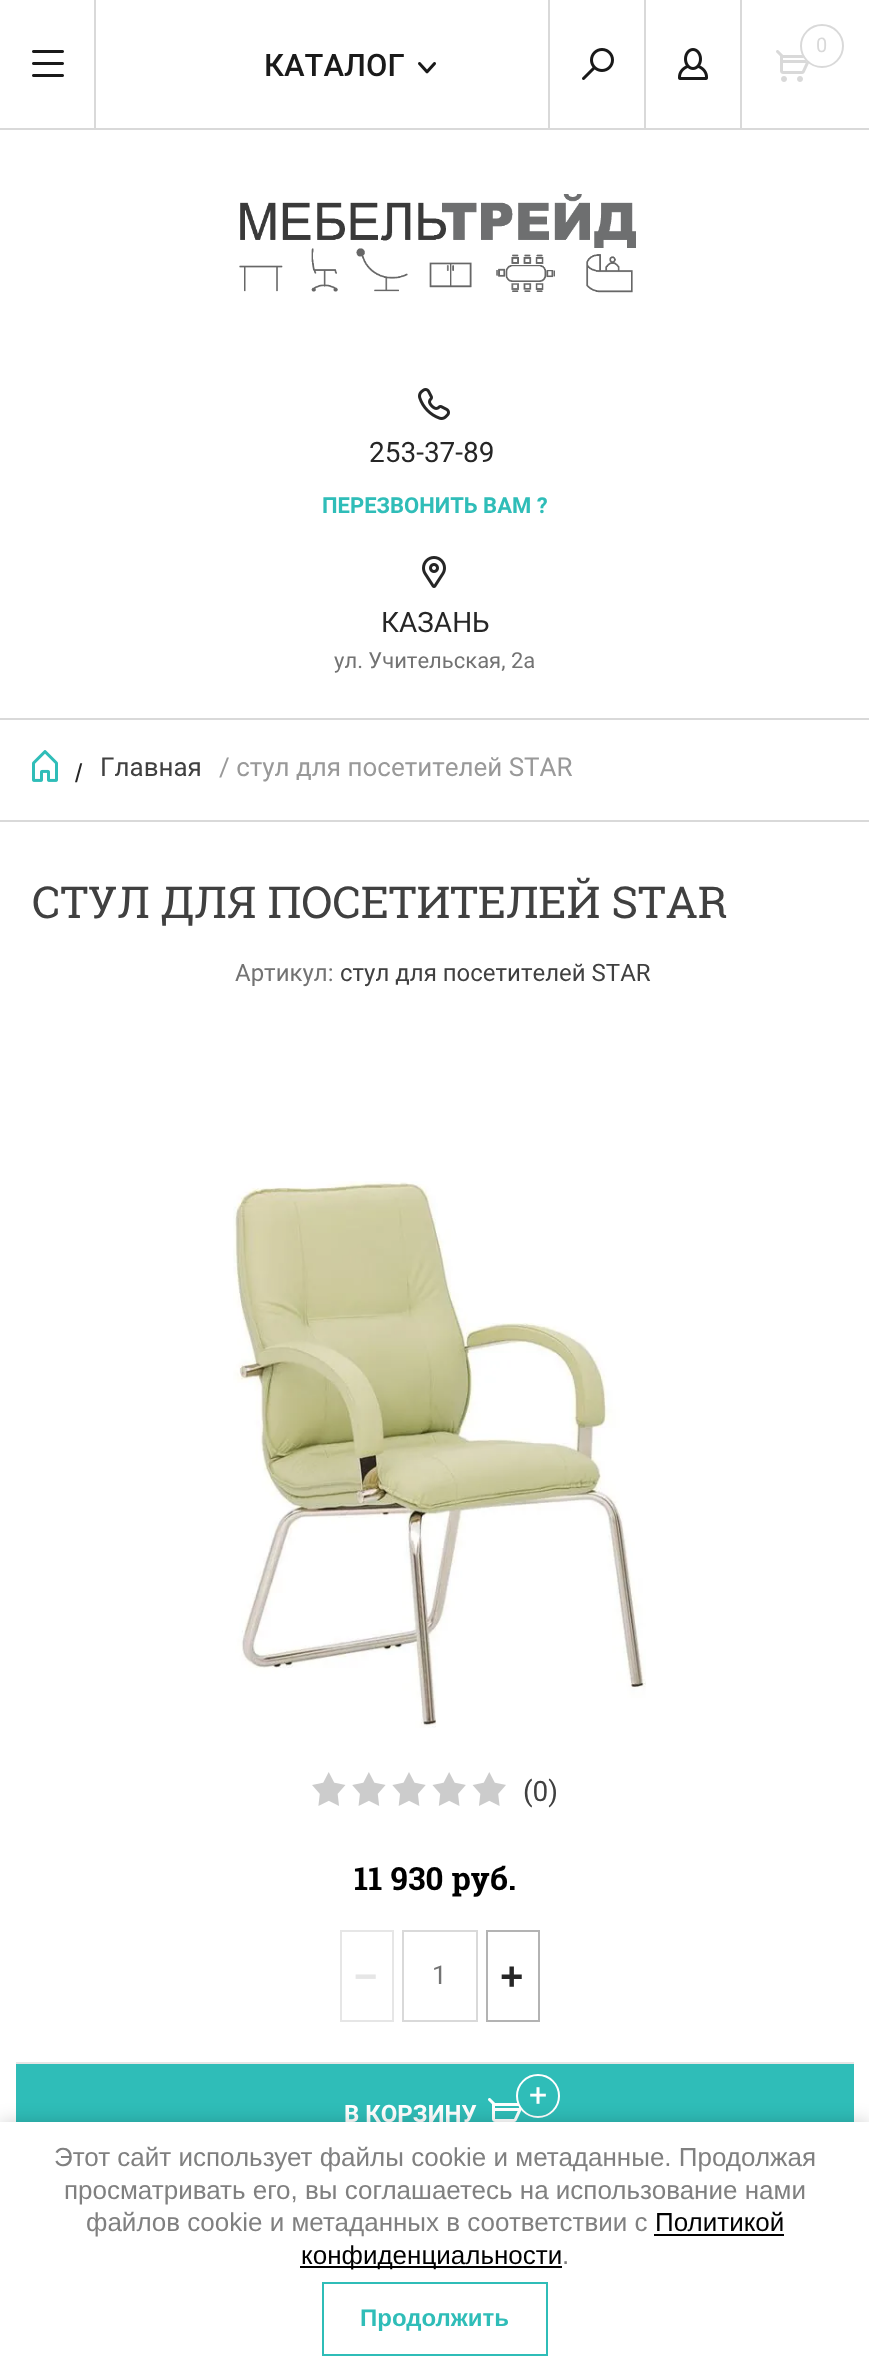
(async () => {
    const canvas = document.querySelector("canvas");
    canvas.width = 869;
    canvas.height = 2375;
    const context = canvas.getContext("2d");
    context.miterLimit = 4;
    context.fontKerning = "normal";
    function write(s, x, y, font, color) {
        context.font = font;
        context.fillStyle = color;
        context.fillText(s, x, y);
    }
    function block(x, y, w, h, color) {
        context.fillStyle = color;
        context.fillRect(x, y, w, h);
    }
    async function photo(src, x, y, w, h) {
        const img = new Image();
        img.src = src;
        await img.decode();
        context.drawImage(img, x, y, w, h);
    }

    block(0, 0, 869, 2375, "rgb(255, 255, 255)");
    block(0, 128, 869, 2, "rgb(217, 217, 217)");
    await photo("media/1.png", 32, 50, 32, 27);
    block(94, 0, 2, 128, "rgb(217, 217, 217)");
    block(548, 0, 2, 128, "rgb(217, 217, 217)");
    await photo("media/2.png", 582, 48, 32, 32);
    await photo("media/3.png", 678, 48, 30, 32);
    block(644, 0, 2, 128, "rgb(217, 217, 217)");
    await photo("media/4.png", 776, 50, 33, 32);
    block(740, 0, 2, 128, "rgb(217, 217, 217)");
    context.fillStyle = "rgb(255, 255, 255)";
    context.beginPath();
    context.arc(822, 46, 22, 0, Math.PI * 2);
    context.fill();
    context.beginPath();
    context.arc(822, 46, 21, 0, Math.PI * 2);
    context.strokeStyle = "rgba(0, 0, 0, 0.15)";
    context.lineWidth = 2;
    context.stroke();
    write("0", 816, 52, "20px Roboto", "rgb(217, 217, 217)");
    write("КАТАЛОГ", 264, 76, "500 31px Roboto", "rgb(26, 26, 26)");
    await photo("media/5.png", 418, 62, 18, 12);
    await photo("media/6.png", 239, 194, 397, 99);
    await photo("media/7.png", 418, 388, 32, 32);
    write("253-37-89", 369, 462, "28px Roboto", "rgb(38, 38, 38)");
    write("ПЕРЕЗВОНИТЬ ВАМ ?", 322, 513, "bold 22px Roboto", "rgb(47, 189, 184)");
    await photo("media/8.png", 422, 556, 24, 32);
    write("КАЗАНЬ", 381, 632, "28px Roboto", "rgb(38, 38, 38)");
    write("ул. Учительская, 2а", 334, 668, "22px Roboto", "rgb(115, 115, 115)");
    block(0, 718, 869, 2, "rgb(217, 217, 217)");
    block(0, 820, 869, 2, "rgb(217, 217, 217)");
    await photo("media/9.png", 32, 750, 26, 32);
    write("/", 75, 782, "26px Liberation Sans", "rgb(38, 38, 38)");
    write("Главная", 100, 776, "26px Roboto", "rgb(64, 64, 64)");
    write("/ стул для посетителей STAR", 219, 776, "26px Roboto", "rgb(153, 153, 153)");
    write("СТУЛ ДЛЯ ПОСЕТИТЕЛЕЙ STAR", 32, 918, "44px Roboto Slab", "rgb(64, 64, 64)");
    write("Артикул:", 235, 981, "24px Roboto", "rgb(115, 115, 115)");
    write("стул для посетителей STAR", 340, 981, "24px Roboto", "rgb(64, 64, 64)");
    await photo("media/10.png", 233, 1181, 413, 547);
    await photo("media/11.png", 312, 1772, 194, 34);
    write("(0)", 523, 1801, "28px Roboto", "rgb(64, 64, 64)");
    block(16, 2062, 838, 2, "rgb(230, 230, 230)");
    write("11 930 руб.", 354, 1890, "bold 32px Roboto Slab", "rgb(0, 0, 0)");
    context.strokeStyle = "rgb(230, 230, 230)";
    context.strokeRect(341, 1931, 52, 90);
    write("−", 354, 1990, "bold 40px Liberation Sans", "rgb(230, 230, 230)");
    context.strokeStyle = "rgb(217, 217, 217)";
    context.strokeRect(403, 1931, 74, 90);
    write("1", 432, 1984, "26px Roboto", "rgb(115, 115, 115)");
    context.strokeStyle = "rgb(179, 179, 179)";
    context.strokeRect(487, 1931, 52, 90);
    write("+", 500, 1990, "bold 40px Liberation Sans", "rgb(38, 38, 38)");
    block(16, 2064, 838, 58, "rgb(47, 189, 184)");
    await photo("media/12.png", 488, 2098, 34, 24);
    context.beginPath();
    context.arc(538, 2096, 21, 0, Math.PI * 2);
    context.fill();
    context.strokeStyle = "rgb(255, 255, 255)";
    context.stroke();
    write("+", 529, 2106, "32px Roboto", "rgb(255, 255, 255)");
    write("В КОРЗИНУ", 344, 2122, "bold 24px Roboto", "rgb(255, 255, 255)");
    context.fillStyle = "rgba(0, 0, 0, 0.23)";
    context.filter = "blur(10px)";
    context.beginPath();
    context.rect(0, 2124, 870, 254);
    context.fill();
    context.filter = "none";
    block(0, 2122, 869, 253, "rgb(255, 255, 255)");
    write("Этот сайт использует файлы cookie и метаданные. Продолжая", 54, 2166, "26px Liberation Sans", "rgb(128, 128, 128)");
    write("просматривать его, вы соглашаетесь на использование нами", 64, 2199, "26px Liberation Sans", "rgb(128, 128, 128)");
    write("файлов cookie и метаданных в соответствии с", 86, 2231, "26px Liberation Sans", "rgb(128, 128, 128)");
    write("Политикой", 655, 2231, "26px Liberation Sans", "rgb(0, 0, 0)");
    block(654, 2234, 130, 2, "rgb(0, 0, 0)");
    block(300, 2266, 262, 2, "rgb(0, 0, 0)");
    write("конфиденциальности", 301, 2264, "26px Liberation Sans", "rgb(0, 0, 0)");
    write(".", 562, 2264, "26px Liberation Sans", "rgb(128, 128, 128)");
    context.strokeStyle = "rgb(47, 189, 184)";
    context.strokeRect(323, 2283, 224, 72);
    write("Продолжить", 360, 2326, "bold 24px Liberation Sans", "rgb(47, 189, 184)");
})();
